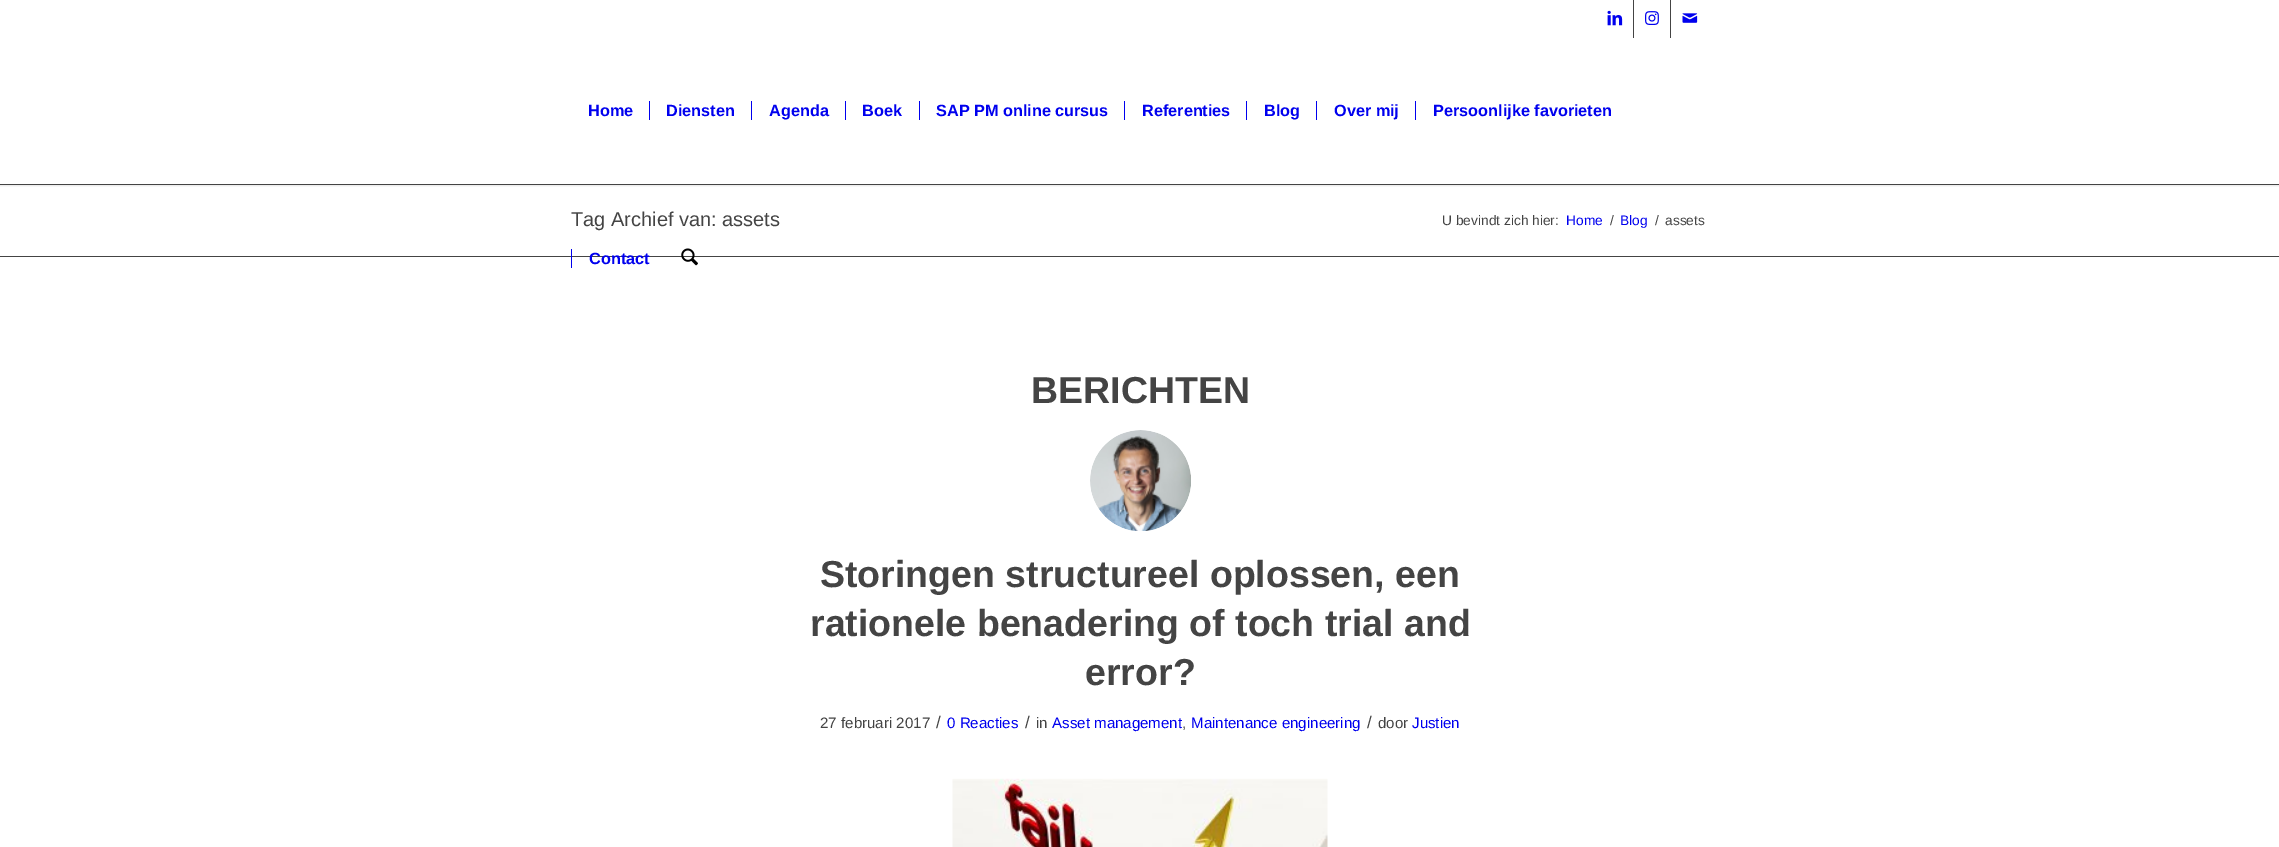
%!PS-Adobe-3.0
%%BoundingBox: 0 0 2279 847
%%LanguageLevel: 3
%%Pages: 1
%%EndComments
%%BeginProlog
/setink { dup -16 bitshift 255 div exch dup -8 bitshift 255 and 255 div exch 255 and 255 div setrgbcolor } def
/usefont { [ exch dup neg 0 0 3 -1 roll 0 0 ] selectfont } def
/setalpha { dup .setfillconstantalpha .setstrokeconstantalpha } def
/rrect { 5 dict begin { /r /h /w /y /x } { exch def } forall
  x r add y moveto x w add y 2 copy h add r arct x w add y h add x 1 index r arct
  x y h add x y r arct x y 2 copy exch w add exch r arct closepath end } def
/softshadow { 12 dict begin { /a /b /q /h /w /y /x } { exch def } forall gsave /was 0 def
  9 -2 -9 { dup b mul 4 div /e exch def 1 sub .425 mul 2.718 exch exp 1 add a .99 .min exch div /now exch def
    1 1 now sub 1 was sub div sub setalpha /was now def
    w h .min e 2 mul add 0 gt { x e sub y e sub w e 2 mul add h e 2 mul add
      q e add b .6 mul add w h .min 2 div e add .min 0 .max rrect fill } if } for grestore end } def
/drawimage { 5 dict begin { /h /w /y /x /name } { exch def } forall
  gsave x y translate w h scale
  w h 8 [w 0 0 h 0 0] name (r) file false 3 colorimage grestore end } def
%%EndProlog
%%BeginSetup
<< /PageSize [2279 847] /PageUsesTransparency true >> setpagedevice
%%EndSetup
%%Page: 1 1
0 .pushpdf14devicefilter
0 847 translate 1 -1 scale
4 setmiterlimit
16#FFFFFF setink
0 0 2279 847 rectfill
16#444444 setink
0 184 2279 1 rectfill
gsave
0 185 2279 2 rectclip
16#000000 setink
-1 -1 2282 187 0 1 0.1 softshadow
grestore
1633 0 1 38 rectfill
(img1.raw) 1607 10 16 16 drawimage
1670 0 1 38 rectfill
(img2.raw) 1645 11 14 14 drawimage
(img3.raw) 1682 13 16 10 drawimage
/LiberationSans-Bold 16.25 usefont
16#0000EE setink
588 116 moveto (Home) show
666 116 moveto (Diensten) show
649 101 1 19 rectfill
769 116 moveto (Agenda) show
751 101 1 19 rectfill
862 116 moveto (Boek) show
845 101 1 19 rectfill
936 116 moveto (SAP PM online cursus) show
919 101 1 19 rectfill
1142 116 moveto (Referenties) show
1124 101 1 19 rectfill
1264 116 moveto (Blog) show
1246 101 1 19 rectfill
1334 116 moveto (Over mij) show
1316 101 1 19 rectfill
1433 116 moveto (Persoonlijke favorieten) show
1415 101 1 19 rectfill
16#444444 setink
0 256 2279 1 rectfill
16#0000EE setink
589 264 moveto (Contact) show
571 249 1 19 rectfill
(img4.raw) 681 248 17 18 drawimage
/LiberationSans-Regular 20 usefont
16#444444 setink
571 226 moveto (Tag Archief van: assets) show
/LiberationSans-Regular 13.75 usefont
1442 225 moveto (U bevindt zich hier:) show
16#0000EE setink
1566 225 moveto (Home) show
16#444444 setink
1610 225 moveto (/) show
16#0000EE setink
1620 225 moveto (Blog) show
16#444444 setink
1655 225 moveto (/) show
1665 225 moveto (assets) show
/LiberationSans-Bold 37.5 usefont
1031 403 moveto (BERICHTEN) show
(img5.raw) 1090 430 101 101 drawimage
[
    [(Storingen structureel oplossen, een) 820 587]
    [(rationele benadering of toch trial and) 810 636]
    [(error?) 1085 685]
] { aload pop moveto show } forall
/LiberationSans-Regular 15.1 usefont
820 728 moveto (27 februari 2017) show
/LiberationSans-Regular 17 usefont
936 728 moveto (/) show
/LiberationSans-Regular 15.1 usefont
16#0000EE setink
947 728 moveto (0 Reacties) show
/LiberationSans-Regular 17 usefont
16#444444 setink
1025 728 moveto (/) show
/LiberationSans-Regular 15.1 usefont
1036 728 moveto (in) show
16#0000EE setink
1052 728 moveto (Asset management) show
16#444444 setink
1182 728 moveto (,) show
16#0000EE setink
1191 728 moveto (Maintenance engineering) show
/LiberationSans-Regular 17 usefont
16#444444 setink
1367 728 moveto (/) show
/LiberationSans-Regular 15.1 usefont
1378 728 moveto (door) show
16#0000EE setink
1412 728 moveto (Justien) show
(img6.raw) 952 778 376 69 drawimage
.poppdf14devicefilter showpage
%%EOF
